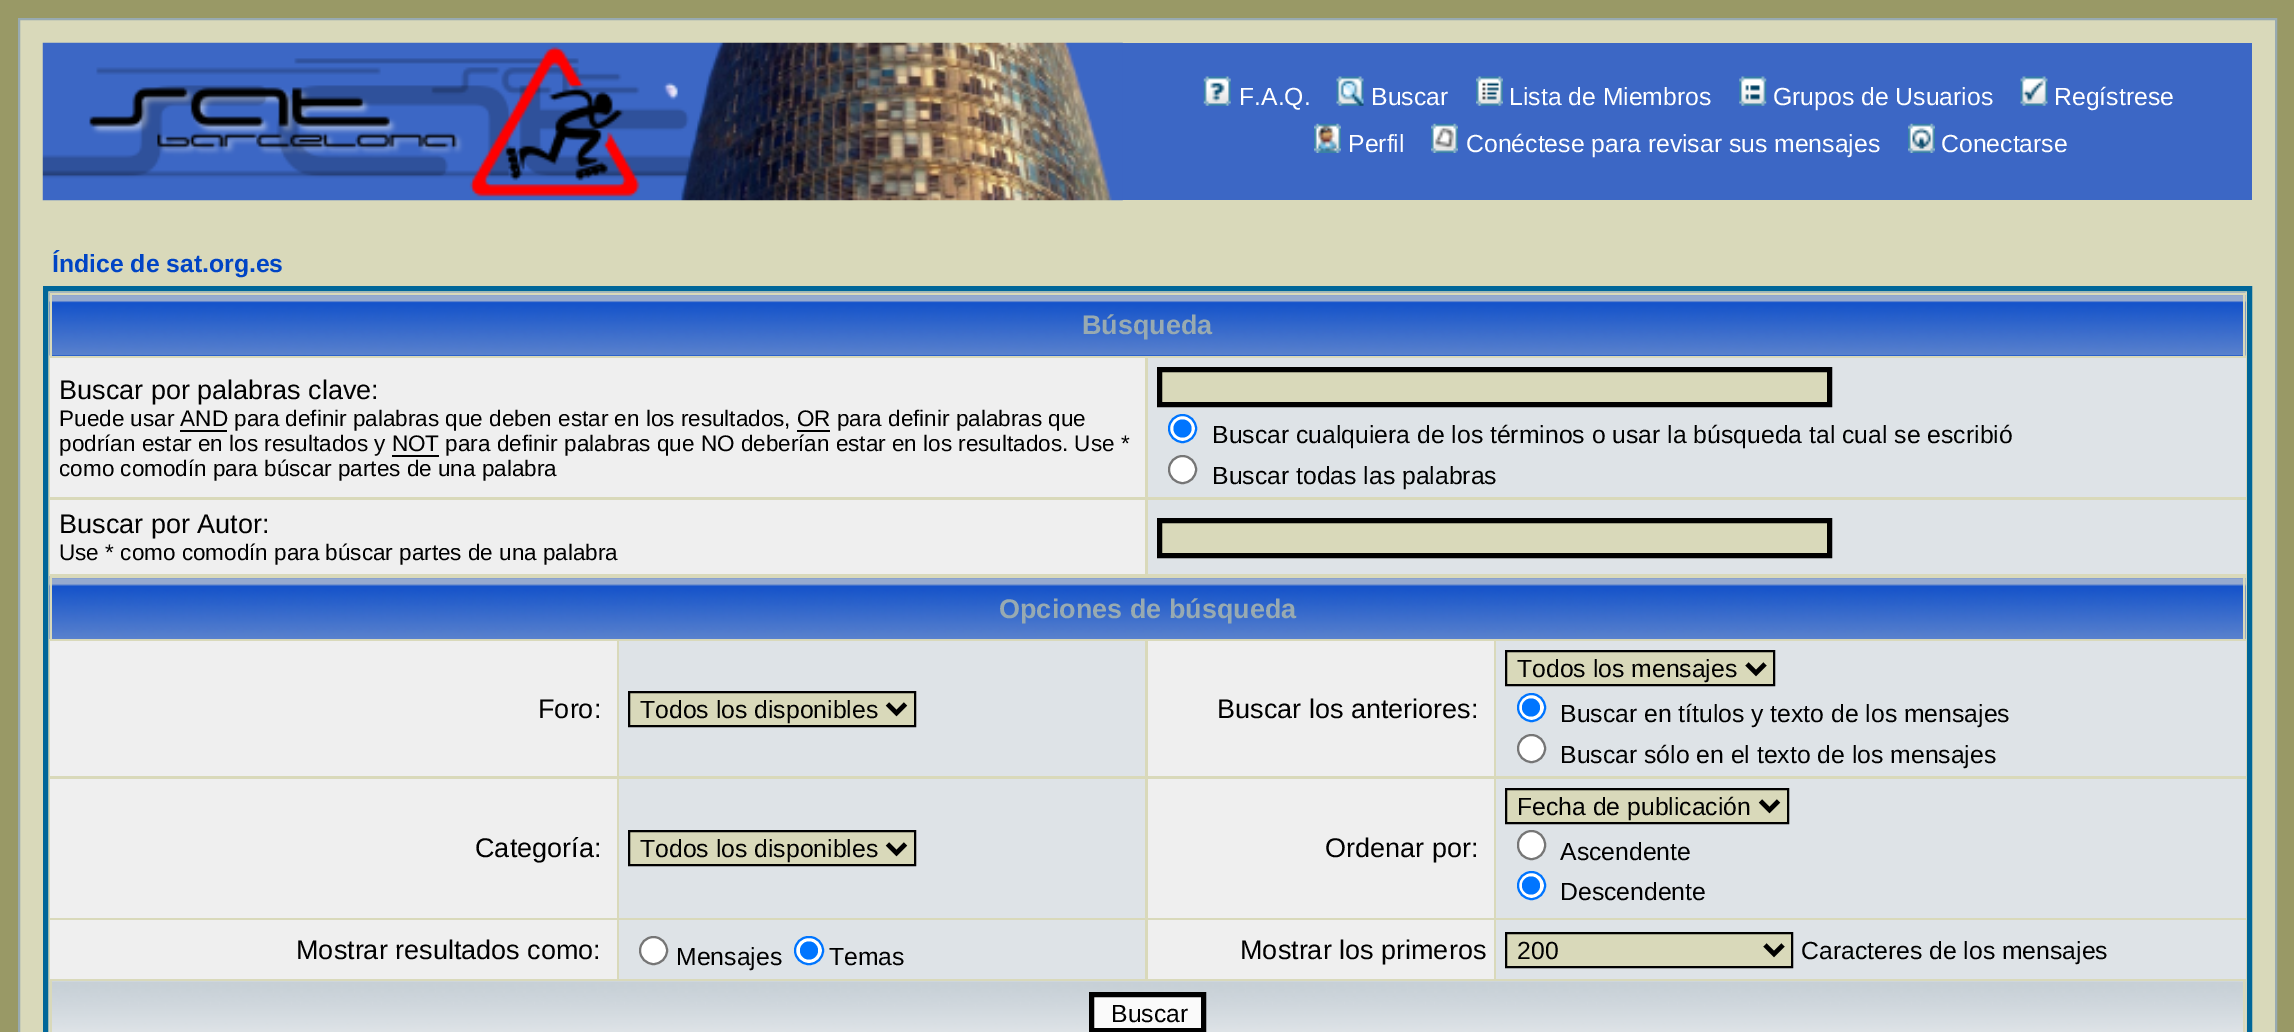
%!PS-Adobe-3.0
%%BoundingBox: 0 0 2294 1032
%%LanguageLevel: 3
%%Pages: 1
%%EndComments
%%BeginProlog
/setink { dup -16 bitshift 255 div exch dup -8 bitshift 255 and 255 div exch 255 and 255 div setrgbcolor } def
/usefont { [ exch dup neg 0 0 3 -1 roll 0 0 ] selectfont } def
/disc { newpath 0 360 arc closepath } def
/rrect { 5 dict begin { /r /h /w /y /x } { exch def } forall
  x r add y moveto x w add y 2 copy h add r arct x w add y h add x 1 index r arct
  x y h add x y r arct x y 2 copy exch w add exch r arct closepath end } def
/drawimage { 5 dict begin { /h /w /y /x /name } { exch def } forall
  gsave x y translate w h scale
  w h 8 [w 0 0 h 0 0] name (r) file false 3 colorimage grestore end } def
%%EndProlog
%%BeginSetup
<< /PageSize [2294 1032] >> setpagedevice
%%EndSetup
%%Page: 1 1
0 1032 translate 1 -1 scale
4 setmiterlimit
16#999966 setink
0 0 2294 1032 rectfill
16#D9D9BA setink
19 19 moveto 2276 19 lineto 2276 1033 lineto 19 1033 lineto closepath gsave fill grestore
16#98AAB1 setink
2 setlinewidth
stroke
(img1.raw) 42 42 1081 159 drawimage
16#3C67C5 setink
1123 43 1129 157 rectfill
(img2.raw) 1203 76 28 30 drawimage
/LiberationSans-Regular 24.75 usefont
16#FFFFFF setink
1239 105 moveto (F.A.Q.) show
(img3.raw) 1336 76 28 30 drawimage
1371 105 moveto (Buscar) show
(img4.raw) 1476 76 27 30 drawimage
1509 105 moveto (Lista de Miembros) show
(img5.raw) 1739 76 28 30 drawimage
1773 105 moveto (Grupos de Usuarios) show
(img6.raw) 2020 76 28 30 drawimage
2054 105 moveto (Regístrese) show
(img7.raw) 1314 123 27 30 drawimage
1348 152 moveto (Perfil) show
(img8.raw) 1431 123 27 30 drawimage
1466 152 moveto (Conéctese para revisar sus mensajes) show
(img9.raw) 1908 123 27 30 drawimage
1941 152 moveto (Conectarse) show
/LiberationSans-Bold 24.75 usefont
16#0044C5 setink
52 272 moveto (Índice de sat.org.es) show
16#006699 setink
5 setlinewidth
45.5 288.5 2204 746 rectstroke
16#0044C5 setink
52 355 2191 1 rectfill
(img10.raw) 49 292 2197 64 drawimage
[
    [50 293 2196 2 16#D9D9BA]
    [2243 293 2 63 16#D9D9BA]
    [50 293 2 63 16#D9D9BA]
] { aload pop setink rectfill } forall
/LiberationSans-Bold 27 usefont
16#98AAB1 setink
1082 334 moveto (Búsqueda) show
16#EFEFEF setink
50 358 1095 139 rectfill
/LiberationSans-Regular 27 usefont
16#000000 setink
59 399 moveto (Buscar por palabras clave:) show
/LiberationSans-Regular 22.5 usefont
59 426 moveto (Puede usar AND para definir palabras que deben estar en los resultados, OR para definir palabras que) show
180 430 47 2 rectfill
797 430 33 2 rectfill
59 451 moveto (podrían estar en los resultados y NOT para definir palabras que NO deberían estar en los resultados. Use *) show
392 455 47 2 rectfill
59 476 moveto (como comodín para búscar partes de una palabra) show
16#DEE3E7 setink
1148 358 1098 139 rectfill
16#D9D9BA setink
1159.5 369.5 moveto 1829.5 369.5 lineto 1829.5 404.5 lineto 1159.5 404.5 lineto closepath gsave fill grestore
16#000000 setink
stroke
16#FFFFFF setink
1182.5 428.5 13.5 disc gsave fill grestore
16#0075FF setink
2 setlinewidth
stroke
1182.5 428.5 9 disc fill
/LiberationSans-Regular 24.75 usefont
16#000000 setink
1212 443 moveto (Buscar cualquiera de los términos o usar la búsqueda tal cual se escribió) show
16#FFFFFF setink
1182.5 469.5 13.5 disc gsave fill grestore
16#767676 setink
stroke
16#000000 setink
1212 484 moveto (Buscar todas las palabras) show
16#EFEFEF setink
50 500 1095 74 rectfill
/LiberationSans-Regular 27 usefont
16#000000 setink
59 533 moveto (Buscar por Autor:) show
/LiberationSans-Regular 22.5 usefont
59 560 moveto (Use * como comodín para búscar partes de una palabra) show
16#DEE3E7 setink
1148 500 1098 74 rectfill
16#D9D9BA setink
1159.5 520.5 moveto 1829.5 520.5 lineto 1829.5 555.5 lineto 1159.5 555.5 lineto closepath gsave fill grestore
16#000000 setink
5 setlinewidth
stroke
(img11.raw) 49 576 2197 63 drawimage
[
    [50 576 2196 2 16#D9D9BA]
    [2243 576 2 63 16#D9D9BA]
    [50 576 2 63 16#D9D9BA]
] { aload pop setink rectfill } forall
/LiberationSans-Bold 27 usefont
16#98AAB1 setink
999 618 moveto (Opciones de búsqueda) show
16#EFEFEF setink
50 641 567 135 rectfill
/LiberationSans-Regular 27 usefont
16#000000 setink
538 718 moveto (Foro:) show
16#DEE3E7 setink
619 641 526 135 rectfill
16#D9D9BA setink
629 692 moveto 915 692 lineto 915 726 lineto 629 726 lineto closepath gsave fill grestore
16#000000 setink
2 setlinewidth
stroke
4.5 setlinewidth
887.5 704 moveto 896.5 713 lineto 905.5 704 lineto stroke
/LiberationSans-Regular 24.75 usefont
640 718 moveto (Todos los disponibles) show
16#EFEFEF setink
1148 641 346 135 rectfill
/LiberationSans-Regular 27 usefont
16#000000 setink
1217 718 moveto (Buscar los anteriores:) show
16#DEE3E7 setink
1496 641 750 135 rectfill
16#D9D9BA setink
1506 651 moveto 1774 651 lineto 1774 685 lineto 1506 685 lineto closepath gsave fill grestore
16#000000 setink
2 setlinewidth
stroke
4.5 setlinewidth
1747 664 moveto 1756 673 lineto 1765 664 lineto stroke
/LiberationSans-Regular 24.75 usefont
1517 677 moveto (Todos los mensajes) show
16#FFFFFF setink
1531.5 707.5 13.5 disc gsave fill grestore
16#0075FF setink
2 setlinewidth
stroke
1531 707.5 9 disc fill
16#000000 setink
1560 722 moveto (Buscar en títulos y texto de los mensajes) show
16#FFFFFF setink
1531.5 748.5 13.5 disc gsave fill grestore
16#767676 setink
stroke
16#000000 setink
1560 763 moveto (Buscar sólo en el texto de los mensajes) show
16#EFEFEF setink
50 779 567 139 rectfill
/LiberationSans-Regular 27 usefont
16#000000 setink
475 857 moveto (Categoría:) show
16#DEE3E7 setink
619 779 526 139 rectfill
16#D9D9BA setink
629 831 moveto 915 831 lineto 915 865 lineto 629 865 lineto closepath gsave fill grestore
16#000000 setink
stroke
4.5 setlinewidth
887.5 844 moveto 896.5 853 lineto 905.5 844 lineto stroke
/LiberationSans-Regular 24.75 usefont
640 857 moveto (Todos los disponibles) show
16#EFEFEF setink
1148 779 346 139 rectfill
/LiberationSans-Regular 27 usefont
16#000000 setink
1325 857 moveto (Ordenar por:) show
16#DEE3E7 setink
1496 779 750 139 rectfill
16#D9D9BA setink
1506 789 moveto 1788 789 lineto 1788 823 lineto 1506 823 lineto closepath gsave fill grestore
16#000000 setink
2 setlinewidth
stroke
4.5 setlinewidth
1760.5 801 moveto 1769.5 810 lineto 1778.5 801 lineto stroke
/LiberationSans-Regular 24.75 usefont
1517 815 moveto (Fecha de publicación) show
16#FFFFFF setink
1518 831 27 28 13.5 rrect gsave fill grestore
16#767676 setink
2 setlinewidth
stroke
16#000000 setink
1560 860 moveto (Ascendente) show
16#FFFFFF setink
1531.5 885.5 13.5 disc gsave fill grestore
16#0075FF setink
stroke
1531 885.5 9 disc fill
16#000000 setink
1560 900 moveto (Descendente) show
16#EFEFEF setink
50 920 567 59 rectfill
/LiberationSans-Regular 27 usefont
16#000000 setink
296 959 moveto (Mostrar resultados como:) show
16#DEE3E7 setink
619 920 526 59 rectfill
16#FFFFFF setink
653.5 950.5 13.5 disc gsave fill grestore
16#767676 setink
stroke
/LiberationSans-Regular 24.75 usefont
16#000000 setink
676 965 moveto (Mensajes) show
16#FFFFFF setink
795 937 28 27 13.5 rrect gsave fill grestore
16#0075FF setink
stroke
809 950.5 9 disc fill
16#000000 setink
829 965 moveto (Temas) show
16#EFEFEF setink
1148 920 346 59 rectfill
/LiberationSans-Regular 27 usefont
16#000000 setink
1240 959 moveto (Mostrar los primeros) show
16#DEE3E7 setink
1496 920 750 59 rectfill
16#D9D9BA setink
1506 933 moveto 1792 933 lineto 1792 967 lineto 1506 967 lineto closepath gsave fill grestore
16#000000 setink
stroke
4.5 setlinewidth
1765 945 moveto 1774 954 lineto 1783 945 lineto stroke
/LiberationSans-Regular 24.75 usefont
1517 959 moveto (200) show
1801 959 moveto (Caracteres de los mensajes) show
(img12.raw) 49 981 2197 51 drawimage
16#D9D9BA setink
2243 981 2 51 rectfill
50 981 2 51 rectfill
16#FAFAFA setink
1091.5 994.5 moveto 1203.5 994.5 lineto 1203.5 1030.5 lineto 1091.5 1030.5 lineto closepath gsave fill grestore
16#000000 setink
5 setlinewidth
stroke
1111 1022 moveto (Buscar) show
showpage
%%EOF
